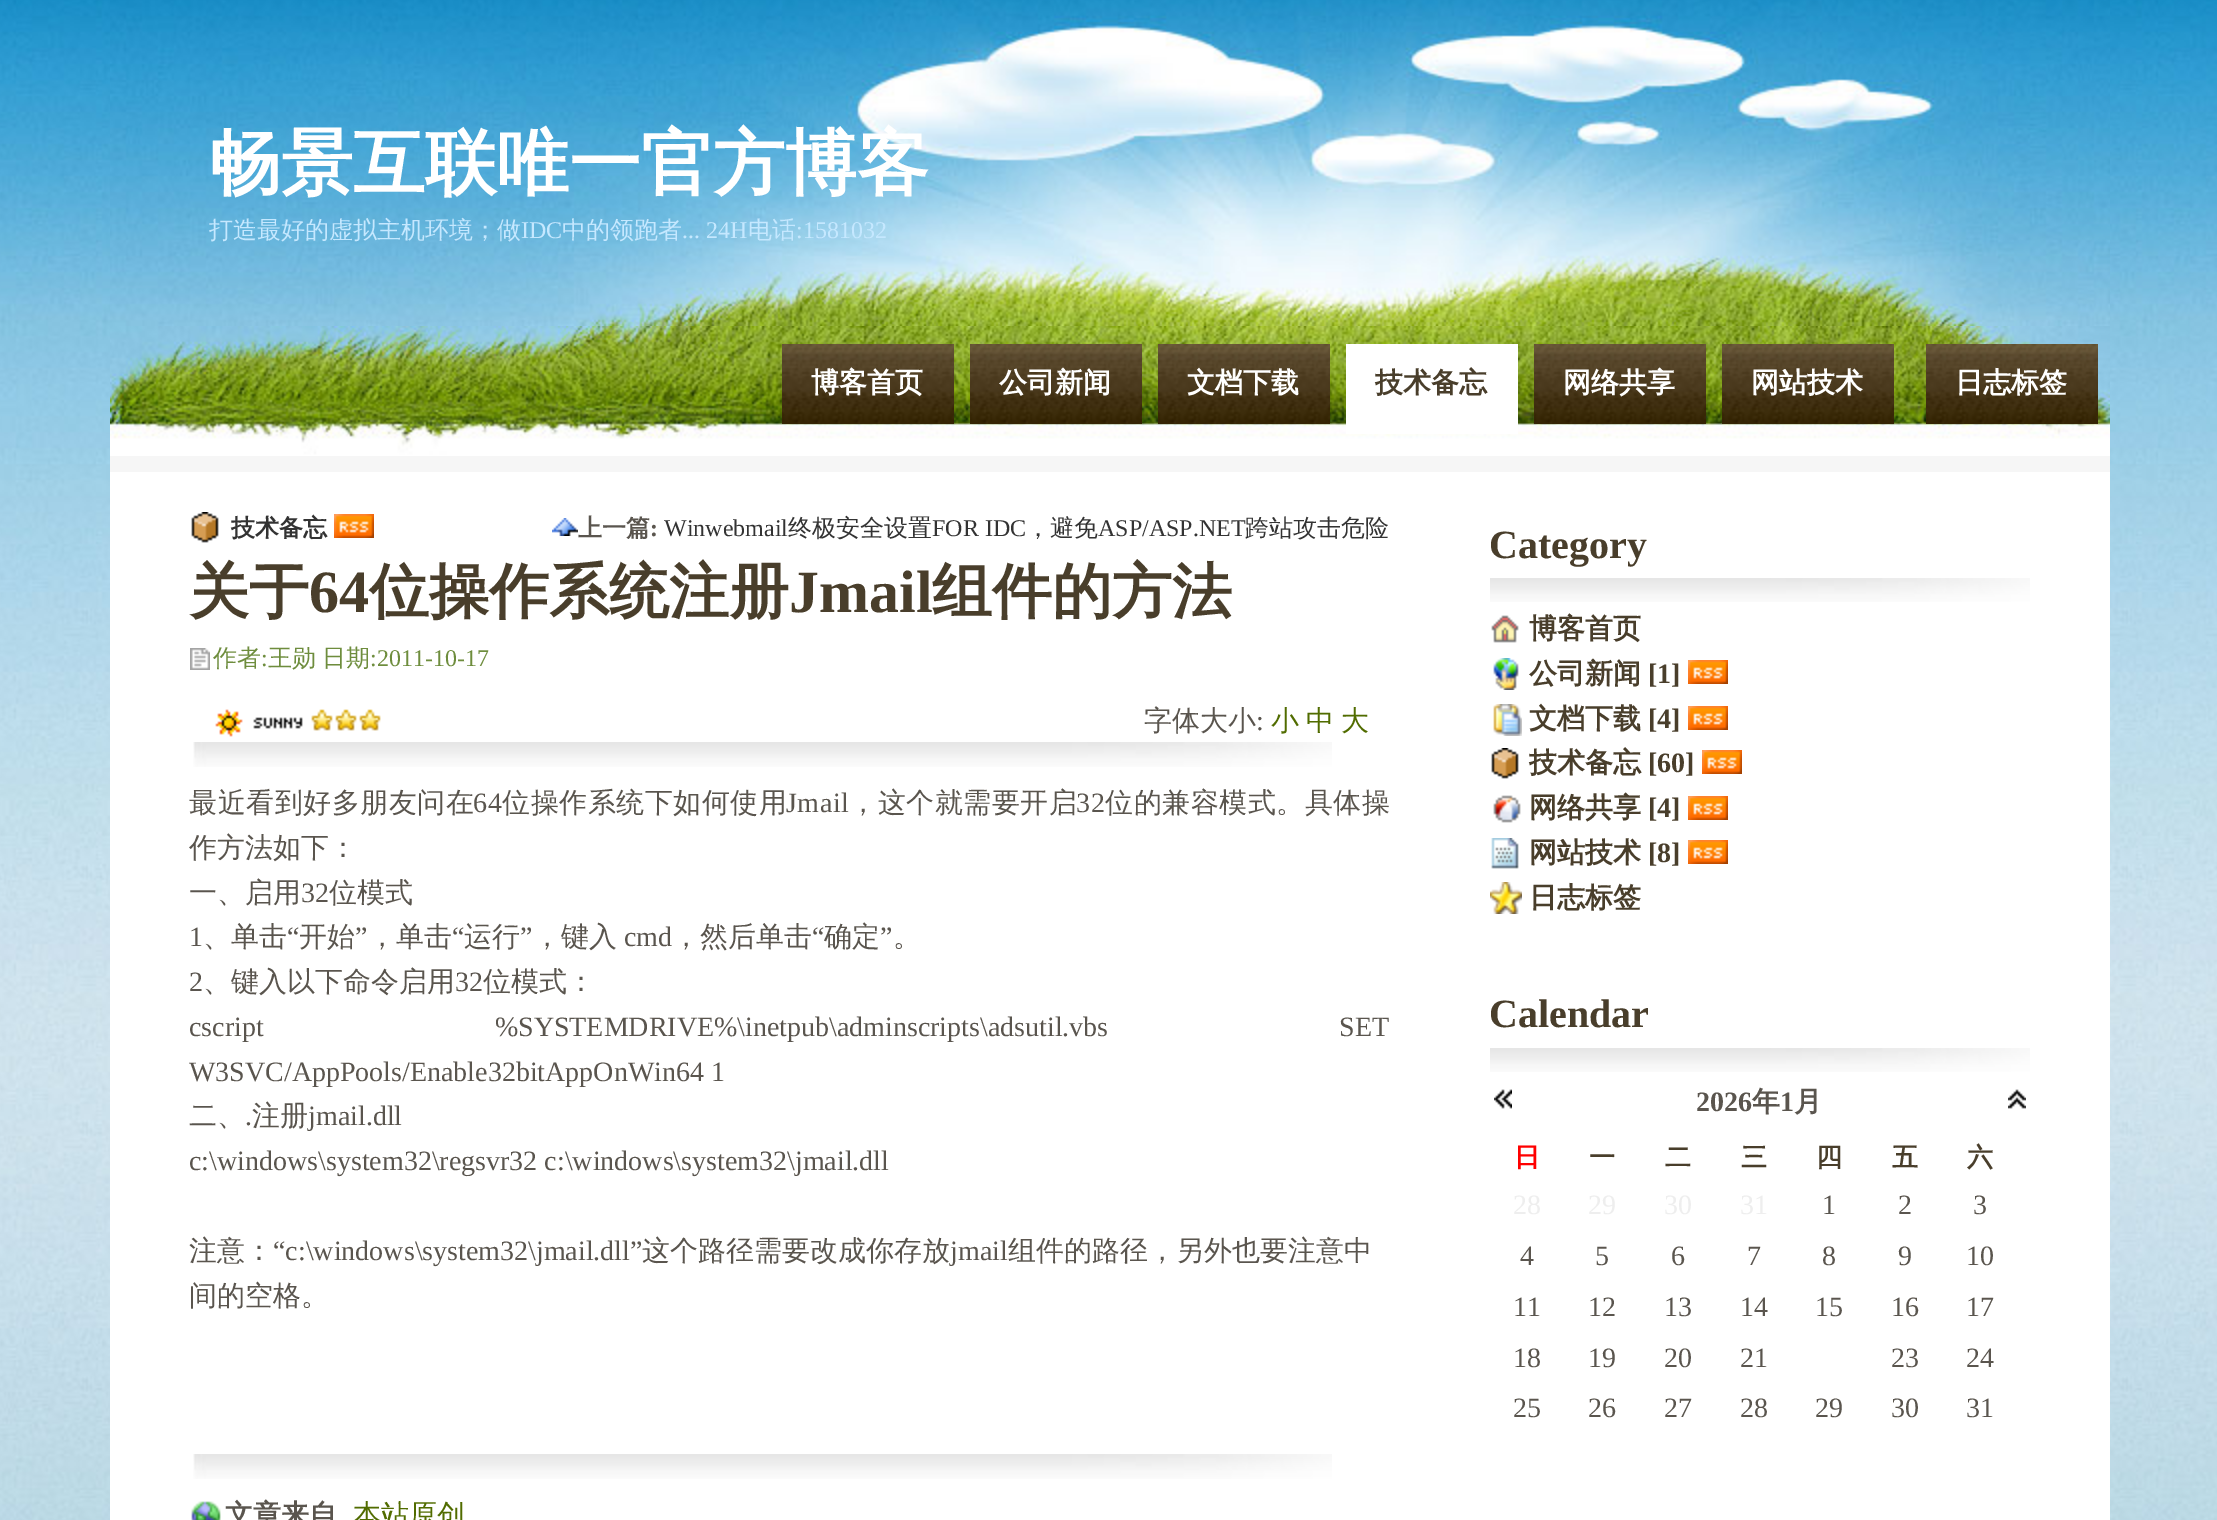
%!PS-Adobe-3.0
%%BoundingBox: 0 0 2217 1520
%%LanguageLevel: 3
%%Pages: 1
%%EndComments
%%BeginProlog
/setink { dup -16 bitshift 255 div exch dup -8 bitshift 255 and 255 div exch 255 and 255 div setrgbcolor } def
/usefont { [ exch dup neg 0 0 3 -1 roll 0 0 ] selectfont } def
/drawimage { 5 dict begin { /h /w /y /x /name } { exch def } forall
  gsave x y translate w h scale
  w h 8 [w 0 0 h 0 0] name (r) file false 3 colorimage grestore end } def
%%EndProlog
%%BeginSetup
<< /PageSize [2217 1520] >> setpagedevice
%%EndSetup
%%Page: 1 1
0 1520 translate 1 -1 scale
4 setmiterlimit
16#FFFFFF setink
0 0 2217 1520 rectfill
(img1.raw) 0 0 2217 1520 drawimage
(img2.raw) 110 0 2000 326 drawimage
/WenQuanYiZenHei-Bold 72 usefont
209 188 moveto (畅景互联唯一官方博客) show
/WenQuanYiZenHei-Medium 24 usefont
16#C5E8FF setink
209 238 moveto (打造最好的虚拟主机环境；做) show
/LiberationSerif-Regular 24 usefont
521 238 moveto (IDC) show
/WenQuanYiZenHei-Medium 24 usefont
562 238 moveto (中的领跑者) show
/LiberationSerif-Regular 24 usefont
682 238 moveto (... 24H) show
/WenQuanYiZenHei-Medium 24 usefont
748 238 moveto (电话) show
/LiberationSerif-Regular 24 usefont
796 238 moveto (:1581032) show
(img3.raw) 110 326 2000 130 drawimage
(img4.raw) 782 344 172 80 drawimage
/WenQuanYiZenHei-Bold 28 usefont
16#FFFFFF setink
811 392 moveto (博客首页) show
(img4.raw) 970 344 172 80 drawimage
999 392 moveto (公司新闻) show
(img4.raw) 1158 344 172 80 drawimage
1187 392 moveto (文档下载) show
1346 344 172 90 rectfill
16#493E2B setink
1375 392 moveto (技术备忘) show
(img4.raw) 1534 344 172 80 drawimage
16#FFFFFF setink
1563 392 moveto (网络共享) show
(img4.raw) 1722 344 172 80 drawimage
1751 392 moveto (网站技术) show
(img4.raw) 1926 344 172 80 drawimage
1955 392 moveto (日志标签) show
16#F6F6F6 setink
110 456 2000 16 rectfill
16#FFFFFF setink
110 472 2000 1048 rectfill
(img5.raw) 191 512 28 31 drawimage
/WenQuanYiZenHei-Bold 24 usefont
16#333333 setink
231 536 moveto (技术备忘) show
(img6.raw) 334 514 40 24 drawimage
(img7.raw) 552 518 26 18 drawimage
16#5A554E setink
578 536 moveto (上一篇) show
/LiberationSerif-Bold 24 usefont
650 536 moveto (:) show
/LiberationSerif-Regular 24 usefont
16#333333 setink
664 536 moveto (Winwebmail) show
/WenQuanYiZenHei-Medium 24 usefont
788 536 moveto (终极安全设置) show
/LiberationSerif-Regular 24 usefont
932 536 moveto (FOR IDC) show
/WenQuanYiZenHei-Medium 24 usefont
1026 536 moveto (，避免) show
/LiberationSerif-Regular 24 usefont
1098 536 moveto (ASP/ASP.NET) show
/WenQuanYiZenHei-Medium 24 usefont
1245 536 moveto (跨站攻击危险) show
/WenQuanYiZenHei-Bold 60 usefont
16#493E2B setink
189 612 moveto (关于) show
/LiberationSerif-Bold 60 usefont
309 612 moveto (64) show
/WenQuanYiZenHei-Bold 60 usefont
369 612 moveto (位操作系统注册) show
/LiberationSerif-Bold 60 usefont
789 612 moveto (Jmail) show
/WenQuanYiZenHei-Bold 60 usefont
932 612 moveto (组件的方法) show
(img8.raw) 190 648 20 22 drawimage
/WenQuanYiZenHei-Medium 24 usefont
16#6E8D3D setink
213 666 moveto (作者) show
/LiberationSerif-Regular 24 usefont
261 666 moveto (:) show
/WenQuanYiZenHei-Medium 24 usefont
268 666 moveto -1 0 32 (王勋 日期) widthshow
/LiberationSerif-Regular 24 usefont
370 666 moveto (:2011-10-17) show
(img9.raw) 215 709 28 28 drawimage
(img10.raw) 253 717 50 12 drawimage
(img11.raw) 311 709 70 22 drawimage
/WenQuanYiZenHei-Medium 28 usefont
16#5A554E setink
1144 730 moveto (字体大小) show
/LiberationSerif-Regular 28 usefont
1256 730 moveto (:) show
/WenQuanYiZenHei-Medium 28 usefont
16#516C00 setink
[
    [(小) 1271 730]
    [(中) 1306 730]
    [(大) 1341 730]
] { aload pop moveto show } forall
(img12.raw) 193 742 1139 25 drawimage
16#5A554E setink
189 812 moveto 0.5 0 (最近看到好多朋友问在) ashow
/LiberationSerif-Regular 28 usefont
473 812 moveto 0.5 0 (64) ashow
/WenQuanYiZenHei-Medium 28 usefont
502 812 moveto 0.5 0 (位操作系统下如何使用) ashow
/LiberationSerif-Regular 28 usefont
786 812 moveto 0.5 0 (Jmail) ashow
/WenQuanYiZenHei-Medium 28 usefont
849 812 moveto 0.5 0 (，这个就需要开启) ashow
/LiberationSerif-Regular 28 usefont
1076 812 moveto 0.5 0 (32) ashow
/WenQuanYiZenHei-Medium 28 usefont
1105 812 moveto 0.5 0 (位的兼容模式。具体操) ashow
189 857 moveto (作方法如下：) show
189 902 moveto (一、启用) show
/LiberationSerif-Regular 28 usefont
301 902 moveto (32) show
/WenQuanYiZenHei-Medium 28 usefont
329 902 moveto (位模式) show
/LiberationSerif-Regular 28 usefont
189 946 moveto (1) show
/WenQuanYiZenHei-Medium 28 usefont
203 946 moveto (、单击) show
/LiberationSerif-Regular 28 usefont
287 946 moveto (“) show
/WenQuanYiZenHei-Medium 28 usefont
299 946 moveto (开始) show
/LiberationSerif-Regular 28 usefont
355 946 moveto (”) show
/WenQuanYiZenHei-Medium 28 usefont
368 946 moveto (，单击) show
/LiberationSerif-Regular 28 usefont
452 946 moveto (“) show
/WenQuanYiZenHei-Medium 28 usefont
464 946 moveto (运行) show
/LiberationSerif-Regular 28 usefont
520 946 moveto (”) show
/WenQuanYiZenHei-Medium 28 usefont
533 946 moveto (，键入) show
/LiberationSerif-Regular 28 usefont
624 946 moveto (cmd) show
/WenQuanYiZenHei-Medium 28 usefont
672 946 moveto (，然后单击) show
/LiberationSerif-Regular 28 usefont
812 946 moveto (“) show
/WenQuanYiZenHei-Medium 28 usefont
824 946 moveto (确定) show
/LiberationSerif-Regular 28 usefont
880 946 moveto (”) show
/WenQuanYiZenHei-Medium 28 usefont
893 946 moveto (。) show
/LiberationSerif-Regular 28 usefont
189 991 moveto (2) show
/WenQuanYiZenHei-Medium 28 usefont
203 991 moveto (、键入以下命令启用) show
/LiberationSerif-Regular 28 usefont
455 991 moveto (32) show
/WenQuanYiZenHei-Medium 28 usefont
483 991 moveto (位模式：) show
/LiberationSerif-Regular 28 usefont
189 1036 moveto 224 0 32 (cscript %SYSTEMDRIVE%\\inetpub\\adminscripts\\adsutil.vbs SET) widthshow
189 1081 moveto (W3SVC/AppPools/Enable32bitAppOnWin64 1) show
/WenQuanYiZenHei-Medium 28 usefont
189 1125 moveto (二、) show
/LiberationSerif-Regular 28 usefont
245 1125 moveto (.) show
/WenQuanYiZenHei-Medium 28 usefont
252 1125 moveto (注册) show
/LiberationSerif-Regular 28 usefont
308 1125 moveto (jmail.dll) show
189 1170 moveto (c:\\windows\\system32\\regsvr32 c:\\windows\\system32\\jmail.dll) show
/WenQuanYiZenHei-Medium 28 usefont
189 1260 moveto (注意：) show
/LiberationSerif-Regular 28 usefont
273 1260 moveto (“c:\\windows\\system32\\jmail.dll”) show
/WenQuanYiZenHei-Medium 28 usefont
642 1260 moveto (这个路径需要改成你存放) show
/LiberationSerif-Regular 28 usefont
950 1260 moveto (jmail) show
/WenQuanYiZenHei-Medium 28 usefont
1008 1260 moveto (组件的路径，另外也要注意中) show
189 1305 moveto (间的空格。) show
(img12.raw) 193 1454 1139 25 drawimage
(img13.raw) 191 1501 30 19 drawimage
/WenQuanYiZenHei-Bold 28 usefont
225 1524 moveto (文章来自) show
/WenQuanYiZenHei-Medium 28 usefont
16#516C00 setink
353 1524 moveto (本站原创) show
/LiberationSerif-Bold 40 usefont
16#493E2B setink
1489 558 moveto (Category) show
(img14.raw) 1490 578 540 24 drawimage
(img15.raw) 1491 615 28 28 drawimage
/WenQuanYiZenHei-Bold 28 usefont
1529 638 moveto (博客首页) show
(img16.raw) 1493 658 26 32 drawimage
1529 683 moveto (公司新闻) show
/LiberationSerif-Bold 28 usefont
1648 683 moveto ([1]) show
(img6.raw) 1688 660 40 24 drawimage
(img17.raw) 1493 704 29 32 drawimage
/WenQuanYiZenHei-Bold 28 usefont
1529 728 moveto (文档下载) show
/LiberationSerif-Bold 28 usefont
1648 728 moveto ([4]) show
(img6.raw) 1688 706 40 24 drawimage
(img5.raw) 1491 748 28 31 drawimage
/WenQuanYiZenHei-Bold 28 usefont
1529 772 moveto (技术备忘) show
/LiberationSerif-Bold 28 usefont
1648 772 moveto ([60]) show
(img6.raw) 1702 750 40 24 drawimage
(img18.raw) 1493 795 28 28 drawimage
/WenQuanYiZenHei-Bold 28 usefont
1529 817 moveto (网络共享) show
/LiberationSerif-Bold 28 usefont
1648 817 moveto ([4]) show
(img6.raw) 1688 796 40 24 drawimage
(img19.raw) 1491 838 28 31 drawimage
/WenQuanYiZenHei-Bold 28 usefont
1529 862 moveto (网站技术) show
/LiberationSerif-Bold 28 usefont
1648 862 moveto ([8]) show
(img6.raw) 1688 840 40 24 drawimage
(img20.raw) 1490 882 32 32 drawimage
/WenQuanYiZenHei-Bold 28 usefont
1529 907 moveto (日志标签) show
/LiberationSerif-Bold 40 usefont
1489 1027 moveto (Calendar) show
(img14.raw) 1490 1048 540 24 drawimage
(img21.raw) 1494 1089 18 20 drawimage
/LiberationSerif-Bold 28 usefont
16#5A554E setink
1696 1111 moveto (2026) show
/WenQuanYiZenHei-Bold 28 usefont
1752 1111 moveto (年) show
/LiberationSerif-Bold 28 usefont
1780 1111 moveto (1) show
/WenQuanYiZenHei-Bold 28 usefont
1794 1111 moveto (月) show
(img22.raw) 2008 1089 18 20 drawimage
/WenQuanYiZenHei-Bold 26 usefont
16#FF0000 setink
1514 1166 moveto (日) show
16#493E2B setink
[
    [(一) 1589 1166]
    [(二) 1665 1166]
    [(三) 1741 1166]
    [(四) 1816 1166]
    [(五) 1892 1166]
    [(六) 1967 1166]
] { aload pop moveto show } forall
/LiberationSerif-Regular 28 usefont
16#EEEEEE setink
[
    [(28) 1513 1214]
    [(29) 1588 1214]
    [(30) 1664 1214]
    [(31) 1740 1214]
] { aload pop moveto show } forall
16#5A554E setink
[
    [(1) 1822 1214]
    [(2) 1898 1214]
    [(3) 1973 1214]
    [(4) 1520 1265]
    [(5) 1595 1265]
    [(6) 1671 1265]
    [(7) 1747 1265]
    [(8) 1822 1265]
    [(9) 1898 1265]
    [(10) 1966 1265]
    [(11) 1513 1316]
    [(12) 1588 1316]
    [(13) 1664 1316]
    [(14) 1740 1316]
    [(15) 1815 1316]
    [(16) 1891 1316]
    [(17) 1966 1316]
    [(18) 1513 1367]
    [(19) 1588 1367]
    [(20) 1664 1367]
    [(21) 1740 1367]
    [(23) 1891 1367]
    [(24) 1966 1367]
    [(25) 1513 1417]
    [(26) 1588 1417]
    [(27) 1664 1417]
    [(28) 1740 1417]
    [(29) 1815 1417]
    [(30) 1891 1417]
    [(31) 1966 1417]
] { aload pop moveto show } forall
showpage
%%EOF
